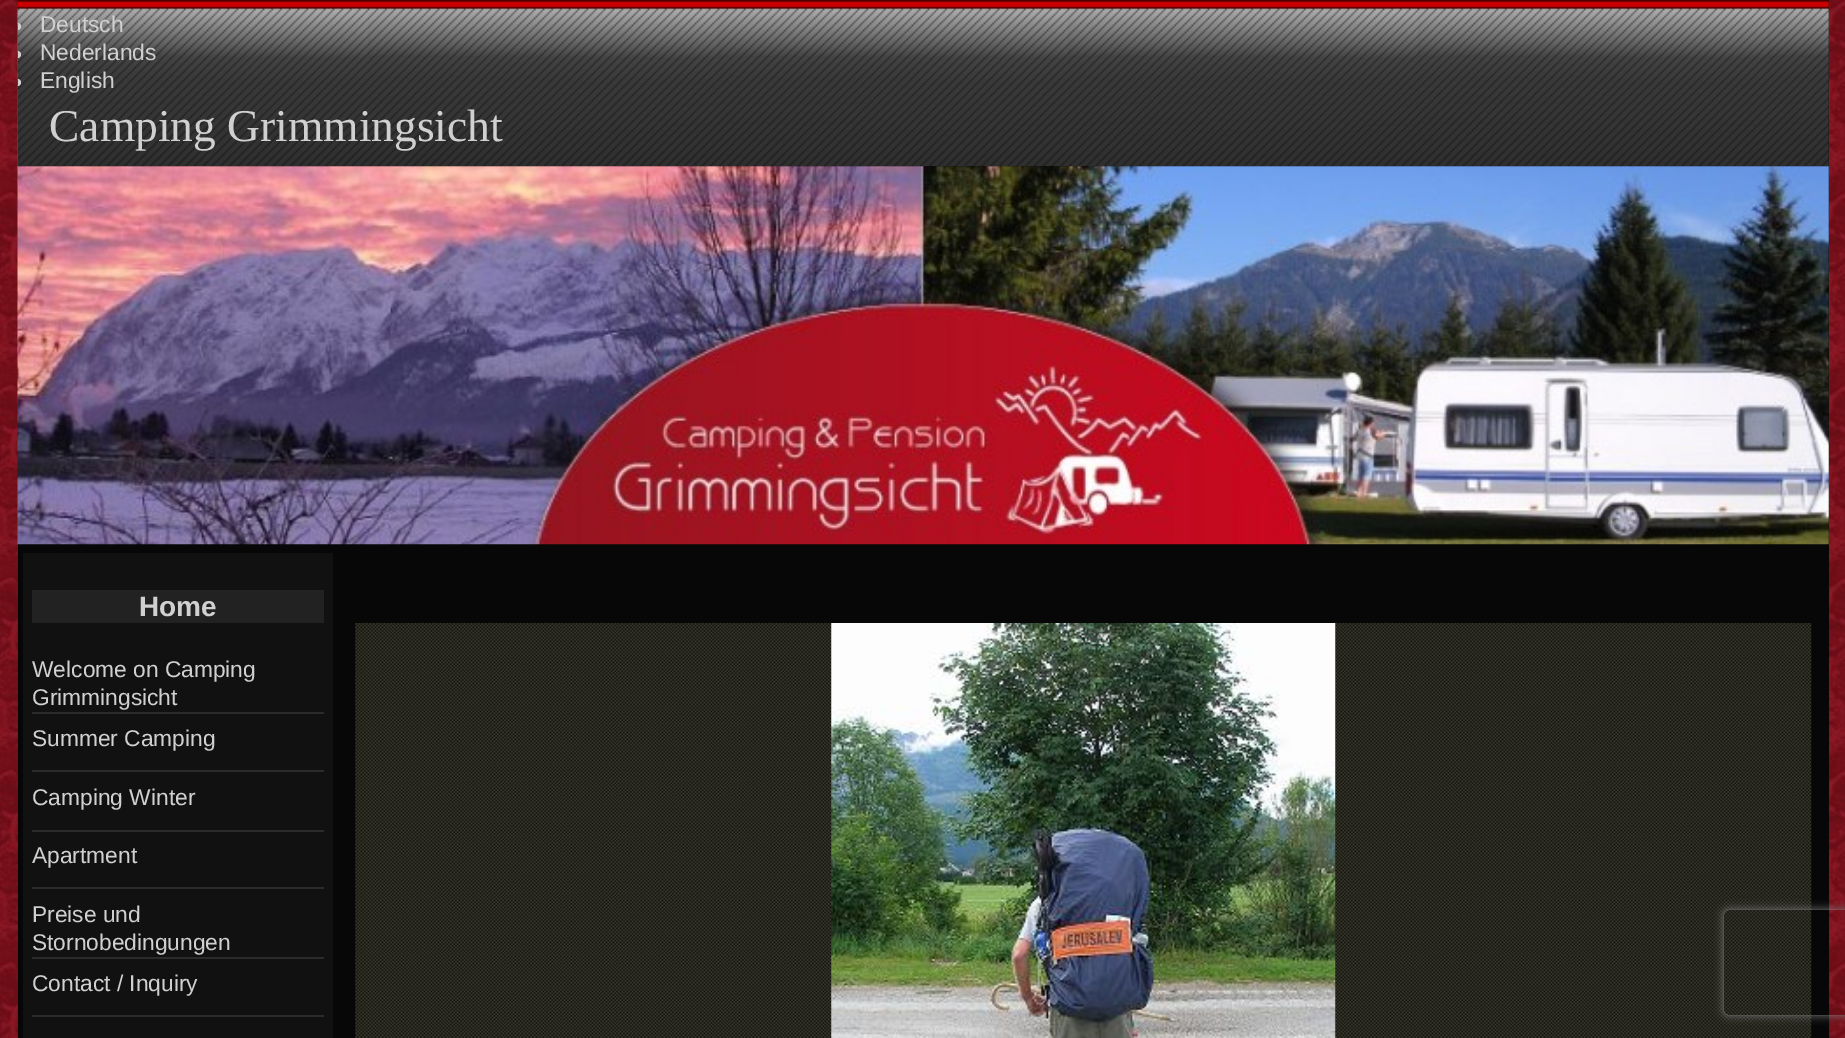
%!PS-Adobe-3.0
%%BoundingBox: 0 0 1845 1038
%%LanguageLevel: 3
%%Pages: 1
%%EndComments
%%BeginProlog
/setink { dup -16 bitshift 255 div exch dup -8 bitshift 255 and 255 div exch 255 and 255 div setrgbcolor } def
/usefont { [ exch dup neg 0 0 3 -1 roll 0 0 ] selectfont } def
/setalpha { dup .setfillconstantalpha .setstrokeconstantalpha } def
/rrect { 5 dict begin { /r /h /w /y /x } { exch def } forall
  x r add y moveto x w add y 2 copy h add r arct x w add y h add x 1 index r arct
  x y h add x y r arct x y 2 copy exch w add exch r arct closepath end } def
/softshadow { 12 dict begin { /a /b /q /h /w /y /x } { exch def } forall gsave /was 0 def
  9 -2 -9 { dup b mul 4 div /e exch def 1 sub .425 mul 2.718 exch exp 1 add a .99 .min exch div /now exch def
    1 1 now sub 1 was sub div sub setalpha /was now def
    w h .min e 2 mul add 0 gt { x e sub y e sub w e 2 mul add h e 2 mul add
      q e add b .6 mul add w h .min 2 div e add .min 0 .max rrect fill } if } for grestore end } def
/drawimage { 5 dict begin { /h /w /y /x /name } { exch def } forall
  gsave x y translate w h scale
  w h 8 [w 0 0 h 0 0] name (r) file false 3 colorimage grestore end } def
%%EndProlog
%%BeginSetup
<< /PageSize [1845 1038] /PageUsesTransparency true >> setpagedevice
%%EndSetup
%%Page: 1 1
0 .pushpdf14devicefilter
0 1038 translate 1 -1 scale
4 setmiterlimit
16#FFFFFF setink
0 0 1845 1038 rectfill
(img1.raw) 0 0 1845 1038 drawimage
16#070707 setink
18 0 1811 1038 rectfill
(img2.raw) 17 0 1812 167 drawimage
16#D0D0D0 setink
18 23 moveto 17.5 23 lineto 19.5 23 21 24.5 21 26.5 curveto 21 28.5 19.5 30 17.5 30 curveto 18 30 lineto closepath fill
/LiberationSans-Regular 22.75 usefont
40 32 moveto (Deutsch) show
18 51 moveto 17.5 51 lineto 19.5 51 21 52.5 21 54.5 curveto 21 56.5 19.5 58 17.5 58 curveto 18 58 lineto closepath fill
40 60 moveto (Nederlands) show
18 79 moveto 17.5 79 lineto 19.5 79 21 80.5 21 82.5 curveto 21 84.5 19.5 86 17.5 86 curveto 18 86 lineto closepath fill
40 88 moveto (English) show
/LiberationSerif-Regular 45.5 usefont
49 141 moveto (Camping Grimmingsicht) show
(img3.raw) 17 166 1812 379 drawimage
16#111111 setink
23 553 310 485 rectfill
16#222222 setink
32 590 292 33 rectfill
/LiberationSans-Bold 28 usefont
16#D0D0D0 setink
139 616 moveto (Home) show
16#2B2B2B setink
32 712 292 2 rectfill
/LiberationSans-Regular 22.75 usefont
16#D0D0D0 setink
32 677 moveto (Welcome on Camping) show
32 705 moveto (Grimmingsicht) show
16#2B2B2B setink
32 770 292 2 rectfill
16#D0D0D0 setink
32 746 moveto (Summer Camping) show
16#2B2B2B setink
32 830 292 2 rectfill
16#D0D0D0 setink
32 805 moveto (Camping Winter) show
16#2B2B2B setink
32 887 292 2 rectfill
16#D0D0D0 setink
32 863 moveto (Apartment) show
16#2B2B2B setink
32 957 292 2 rectfill
16#D0D0D0 setink
32 922 moveto (Preise und) show
32 950 moveto (Stornobedingungen) show
16#2B2B2B setink
32 1015 292 2 rectfill
16#D0D0D0 setink
32 991 moveto (Contact / Inquiry) show
(img4.raw) 355 623 1457 415 drawimage
(img5.raw) 831 623 505 415 drawimage
gsave
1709 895 moveto 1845 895 lineto 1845 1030 lineto 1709 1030 lineto closepath 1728 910 moveto 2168 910 lineto 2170 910 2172 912 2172 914 curveto 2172 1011 lineto 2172 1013 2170 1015 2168 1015 curveto 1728 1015 lineto 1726 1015 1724 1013 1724 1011 curveto 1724 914 lineto 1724 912 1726 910 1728 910 curveto closepath eoclip newpath
16#808080 setink
1724 910 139 105 4 4.5 1 softshadow
grestore
.poppdf14devicefilter showpage
%%EOF
